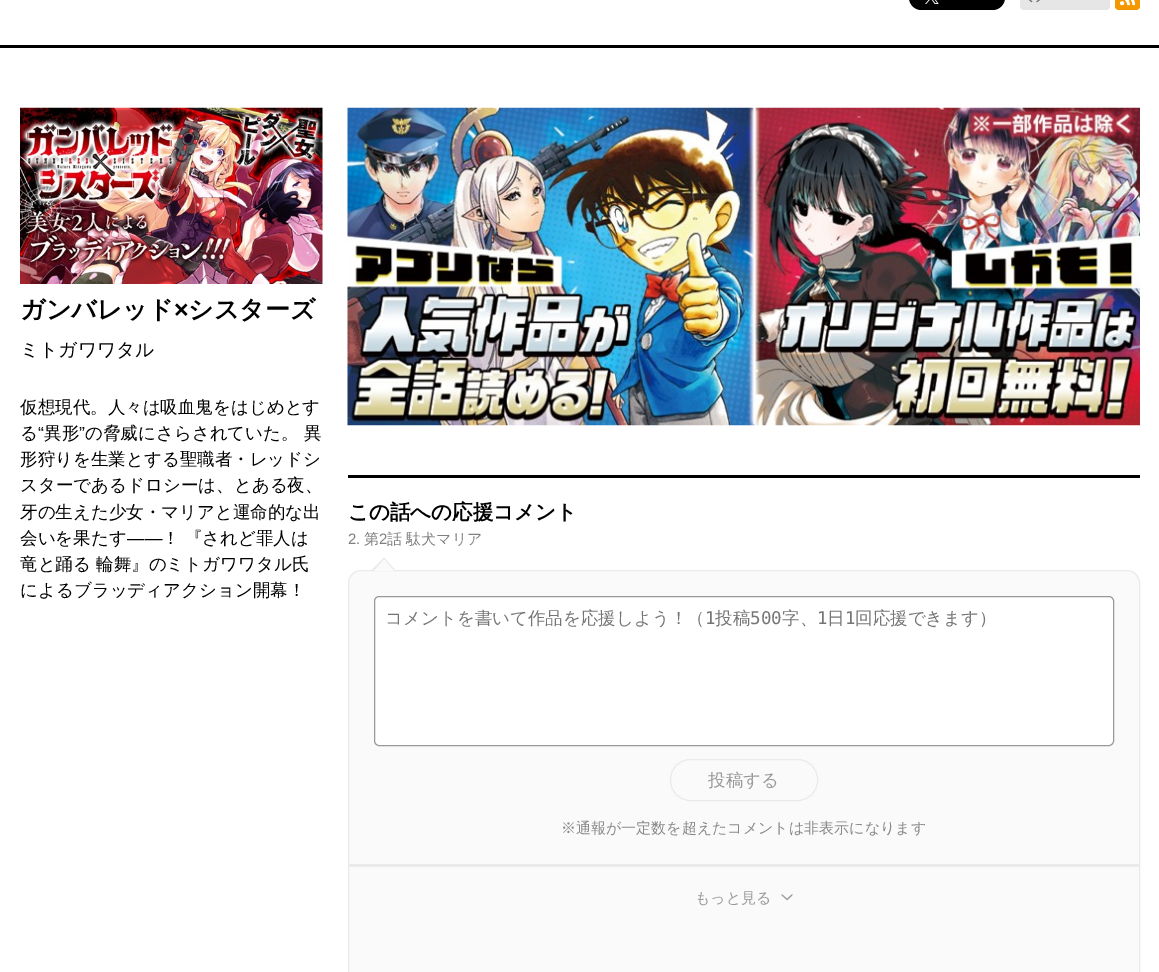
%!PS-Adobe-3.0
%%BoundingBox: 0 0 1159 972
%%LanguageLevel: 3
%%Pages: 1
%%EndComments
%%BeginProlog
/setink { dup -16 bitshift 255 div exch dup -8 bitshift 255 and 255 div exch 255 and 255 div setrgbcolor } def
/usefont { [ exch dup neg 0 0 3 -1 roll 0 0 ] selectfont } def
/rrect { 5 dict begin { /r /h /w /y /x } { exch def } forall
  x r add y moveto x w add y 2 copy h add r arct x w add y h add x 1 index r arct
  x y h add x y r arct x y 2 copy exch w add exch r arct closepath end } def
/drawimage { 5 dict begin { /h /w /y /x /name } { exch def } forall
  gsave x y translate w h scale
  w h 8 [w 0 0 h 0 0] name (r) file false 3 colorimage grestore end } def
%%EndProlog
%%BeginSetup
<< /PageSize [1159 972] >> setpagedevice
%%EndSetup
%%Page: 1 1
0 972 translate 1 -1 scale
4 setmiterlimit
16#FFFFFF setink
0 0 1159 972 rectfill
16#000000 setink
0 45 1159 3 rectfill
909 -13 96 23 12.5 rrect fill
(img1.raw) 925 0 14 4 drawimage
16#E6E6E6 setink
1020 -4 90 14 4 rrect fill
(img2.raw) 1028 0 12 3 drawimage
16#F39801 setink
1115 -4 25 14 4 rrect fill
(img3.raw) 1120 0 15 6 drawimage
(img4.raw) 20 107 303 177 drawimage
/WenQuanYiZenHei-Bold 25 usefont
16#000000 setink
20 318 moveto (ガンバレッド) show
/LiberationSans-Bold 25 usefont
174 318 moveto (×) show
/WenQuanYiZenHei-Bold 25 usefont
188 318 moveto (シスターズ) show
/WenQuanYiZenHei-Medium 18.75 usefont
20 356 moveto (ミトガワワタル) show
/WenQuanYiZenHei-Medium 17.5 usefont
20 413 moveto (仮想現代。人々は吸血鬼をはじめとす) show
20 439 moveto (る) show
/LiberationSans-Regular 17.5 usefont
38 439 moveto (“) show
/WenQuanYiZenHei-Medium 17.5 usefont
44 439 moveto (異形) show
/LiberationSans-Regular 17.5 usefont
79 439 moveto (”) show
/WenQuanYiZenHei-Medium 17.5 usefont
[
    [(の脅威にさらされていた。 異) 85 439]
    [(形狩りを生業とする聖職者・レッドシ) 20 465]
    [(スターであるドロシーは、とある夜、) 20 491]
    [(牙の生えた少女・マリアと運命的な出) 20 518]
    [(会いを果たす) 20 544]
] { aload pop moveto show } forall
/LiberationSans-Regular 17.5 usefont
127 544 moveto (――) show
/WenQuanYiZenHei-Medium 17.5 usefont
[
    [(！ 『されど罪人は) 162 544]
    [(竜と踊る 輪舞』のミトガワワタル氏) 20 570]
    [(によるブラッディアクション開幕！) 20 596]
] { aload pop moveto show } forall
(img5.raw) 347 107 793 319 drawimage
348 475 792 3 rectfill
/WenQuanYiZenHei-Bold 20.5 usefont
348 519 moveto (この話への応援コメント) show
/LiberationSans-Regular 15 usefont
16#808080 setink
348 544 moveto (2.) show
/WenQuanYiZenHei-Medium 15 usefont
364 544 moveto (第) show
/LiberationSans-Regular 15 usefont
379 544 moveto (2) show
/WenQuanYiZenHei-Medium 15 usefont
387 544 moveto (話 駄犬マリア) show
16#FAFAFA setink
348.5 570.5 791 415 12.5 rrect gsave fill grestore
16#EAEAEA setink
stroke
396 571 moveto 371 571 lineto 384 557.5 lineto closepath fill
16#FAFAFA setink
394 571 moveto 374 571 lineto 384 559 lineto closepath fill
16#EAEAEA setink
349 864 790 3 rectfill
16#FFFFFF setink
374.5 596.5 739 149 4.5 rrect gsave fill grestore
16#999999 setink
stroke
/WenQuanYiZenHei-Medium 17.5 usefont
16#757575 setink
385 624 moveto (コメントを書いて作品を応援しよう！（) show
/DejaVuSansMono-Regular 17.5 usefont
705 624 moveto (1) show
/WenQuanYiZenHei-Medium 17.5 usefont
715 624 moveto (投稿) show
/DejaVuSansMono-Regular 17.5 usefont
750 624 moveto (500) show
/WenQuanYiZenHei-Medium 17.5 usefont
782 624 moveto (字、) show
/DejaVuSansMono-Regular 17.5 usefont
817 624 moveto (1) show
/WenQuanYiZenHei-Medium 17.5 usefont
827 624 moveto (日) show
/DejaVuSansMono-Regular 17.5 usefont
845 624 moveto (1) show
/WenQuanYiZenHei-Medium 17.5 usefont
855 624 moveto (回応援できます）) show
16#EAEAEA setink
670.5 759.5 147 41 19.5 rrect stroke
16#999999 setink
708 786 moveto (投稿する) show
/WenQuanYiZenHei-Medium 15 usefont
16#888888 setink
561 833 moveto (※通報が一定数を超えたコメントは非表示になります) show
16#999999 setink
695 903 moveto (もっと見る) show
(img6.raw) 781 894 12 7 drawimage
showpage
%%EOF
